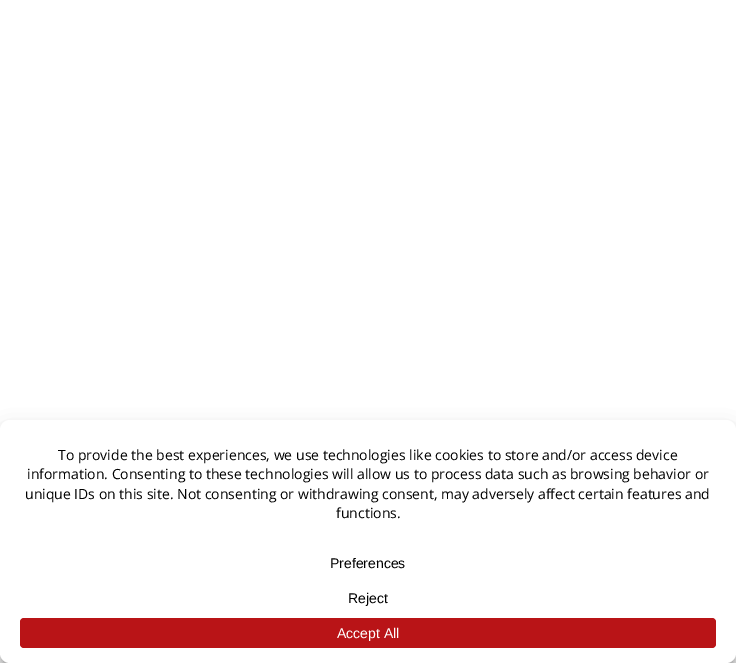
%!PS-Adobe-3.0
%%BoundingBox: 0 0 736 663
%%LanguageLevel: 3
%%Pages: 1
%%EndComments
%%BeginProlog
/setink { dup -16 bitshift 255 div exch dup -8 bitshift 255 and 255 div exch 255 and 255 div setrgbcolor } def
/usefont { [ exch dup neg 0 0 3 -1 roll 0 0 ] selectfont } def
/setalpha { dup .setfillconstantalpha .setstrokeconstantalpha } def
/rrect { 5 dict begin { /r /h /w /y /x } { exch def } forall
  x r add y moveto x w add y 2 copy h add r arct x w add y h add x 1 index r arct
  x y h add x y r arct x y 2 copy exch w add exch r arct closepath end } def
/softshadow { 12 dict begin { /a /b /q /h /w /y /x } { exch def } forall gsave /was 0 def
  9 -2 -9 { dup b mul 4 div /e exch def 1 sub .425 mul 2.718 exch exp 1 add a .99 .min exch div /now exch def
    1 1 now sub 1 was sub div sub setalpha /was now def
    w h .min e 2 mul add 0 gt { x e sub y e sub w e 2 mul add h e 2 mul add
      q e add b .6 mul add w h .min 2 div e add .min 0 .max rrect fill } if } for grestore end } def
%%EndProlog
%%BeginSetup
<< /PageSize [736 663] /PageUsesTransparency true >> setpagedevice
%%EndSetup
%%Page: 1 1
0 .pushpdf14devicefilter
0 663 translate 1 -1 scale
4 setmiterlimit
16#FFFFFF setink
0 0 736 663 rectfill
16#000000 setink
0 426 736 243 10 3 0.23 softshadow
0 430 736 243 10 10 0.19 softshadow
16#FFFFFF setink
0 420 736 243 10 rrect fill
/OpenSans-Regular 14 usefont
16#000000 setink
[
    [(To provide the best experiences, we use technologies like cookies to store and/or access device) 58 460]
    [(information. Consenting to these technologies will allow us to process data such as browsing behavior or) 27 479]
    [(unique IDs on this site. Not consenting or withdrawing consent, may adversely affect certain features and) 25 499]
    [(functions.) 336 518]
] { aload pop moveto show } forall
/LiberationSans-Regular 14 usefont
330 568 moveto (Preferences) show
348 603 moveto (Reject) show
16#B91417 setink
20 618 696 30 4 rrect fill
16#FFFFFF setink
337 638 moveto (Accept All) show
.poppdf14devicefilter showpage
%%EOF
